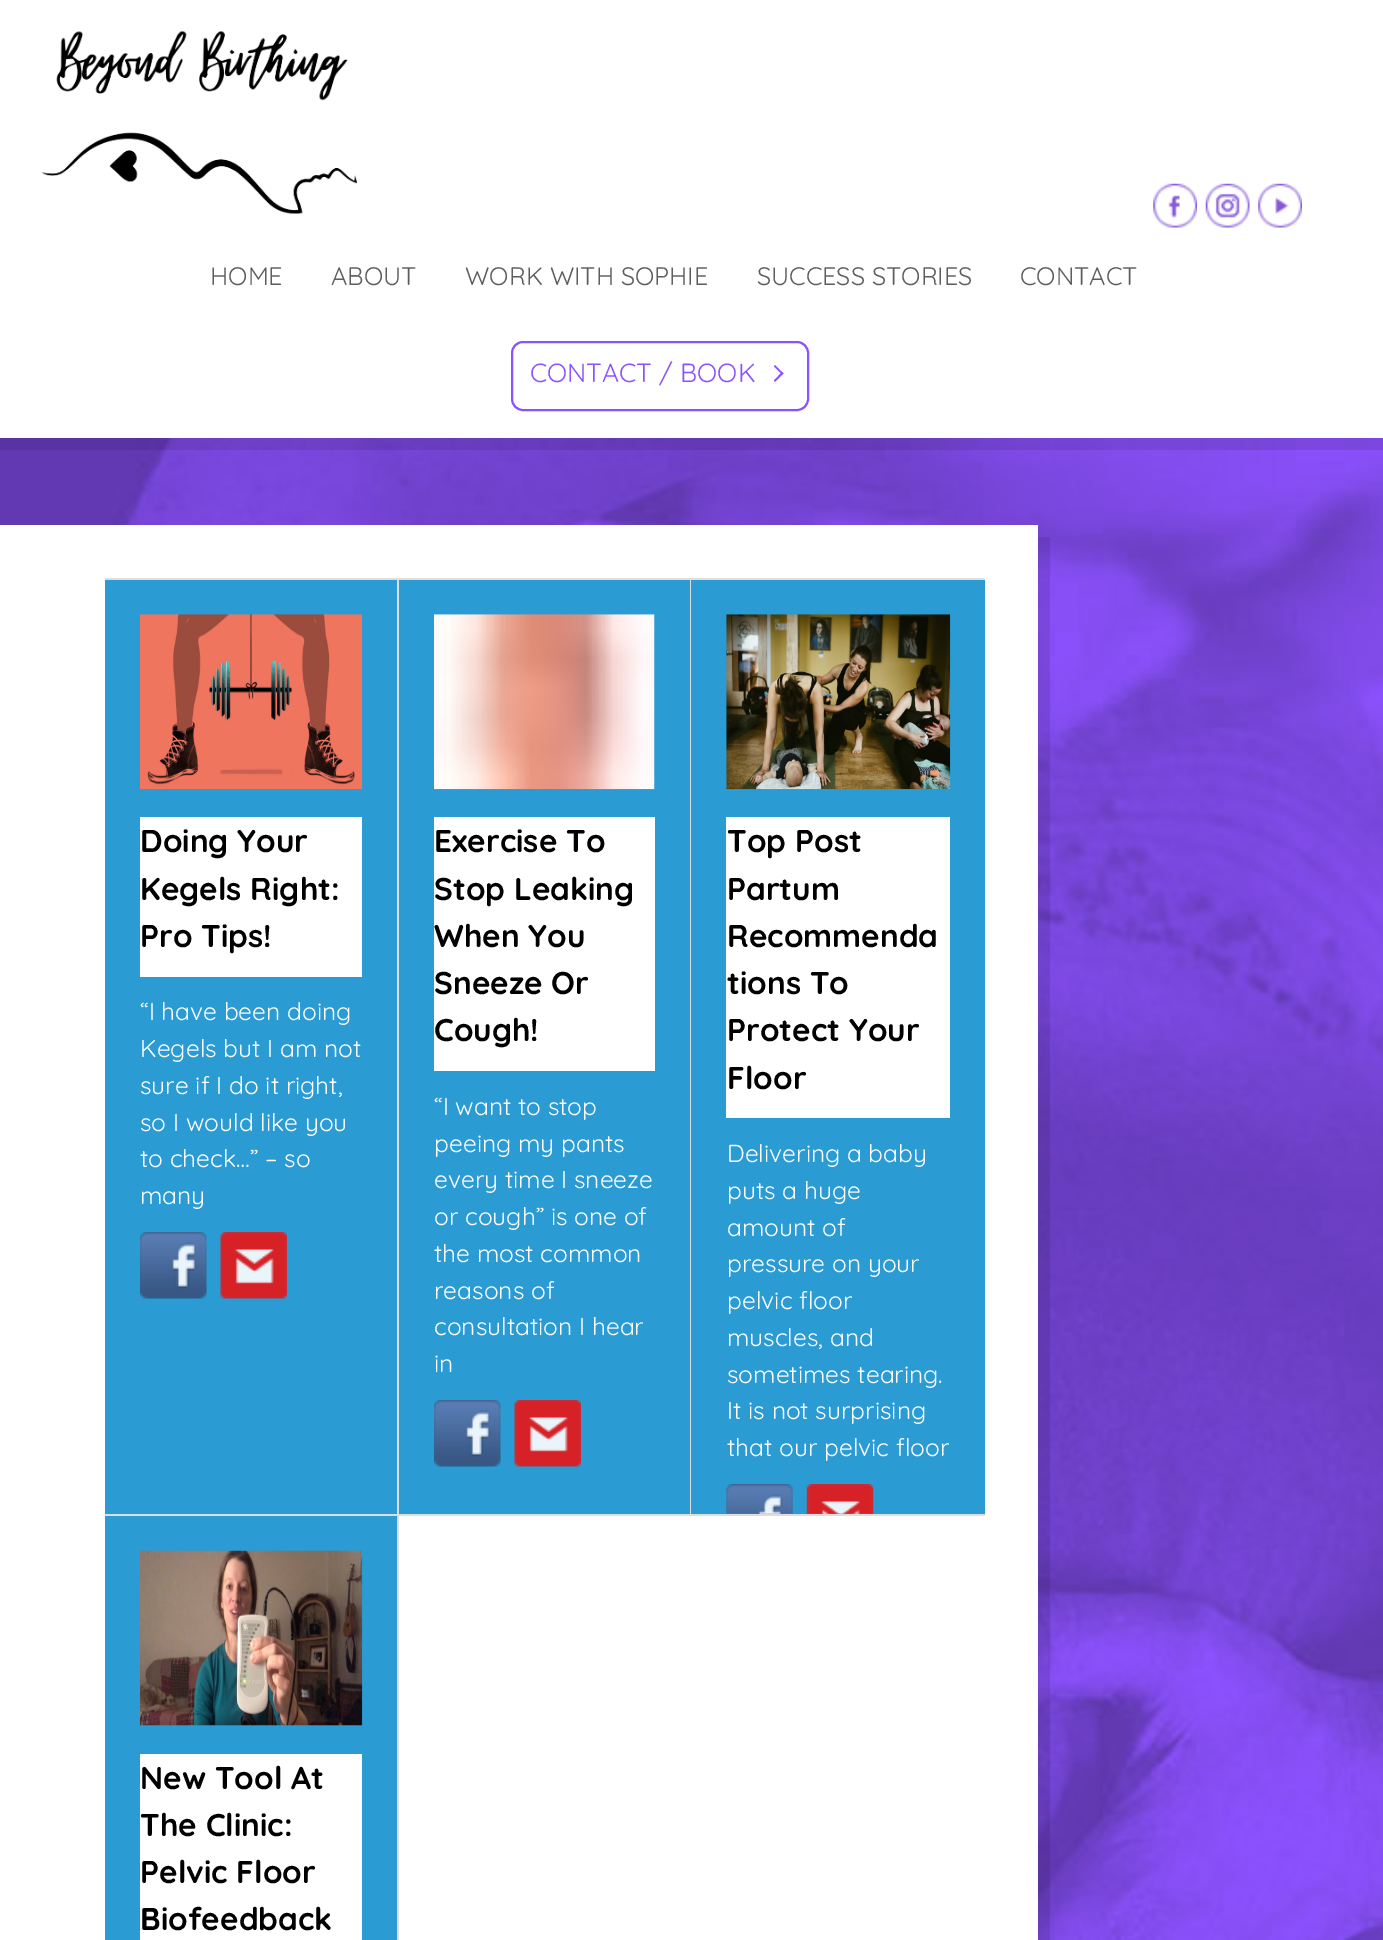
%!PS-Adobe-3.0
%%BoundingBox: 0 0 1383 1940
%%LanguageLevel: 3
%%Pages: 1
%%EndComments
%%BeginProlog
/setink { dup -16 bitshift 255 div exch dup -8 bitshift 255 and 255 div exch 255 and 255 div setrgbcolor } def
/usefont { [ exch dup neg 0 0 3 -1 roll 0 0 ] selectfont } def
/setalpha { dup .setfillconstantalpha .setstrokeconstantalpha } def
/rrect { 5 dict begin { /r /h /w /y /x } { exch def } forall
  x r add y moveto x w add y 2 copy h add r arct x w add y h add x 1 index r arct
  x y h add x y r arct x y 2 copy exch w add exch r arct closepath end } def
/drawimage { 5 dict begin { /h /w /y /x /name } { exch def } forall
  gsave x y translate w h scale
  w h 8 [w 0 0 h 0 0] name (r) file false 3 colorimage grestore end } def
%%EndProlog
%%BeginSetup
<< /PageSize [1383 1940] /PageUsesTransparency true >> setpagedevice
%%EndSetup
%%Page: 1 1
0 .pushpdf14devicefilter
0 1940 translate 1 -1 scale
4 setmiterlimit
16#FFFFFF setink
0 0 1383 1940 rectfill
(img5.raw) 0 438 1383 1502 drawimage
0.1 setalpha
16#000000 setink
0 438 1383 12 rectfill
1 setalpha
(img1.raw) 42 31 315 183 drawimage
(img2.raw) 1153 183 44 45 drawimage
(img3.raw) 1205 183 45 45 drawimage
(img4.raw) 1258 183 44 45 drawimage
/Quicksand-Light 25.25 usefont
16#5E5E5E setink
[
    [(HOME) 210 285]
    [(ABOUT) 331 285]
    [(WORK WITH SOPHIE) 465 285]
    [(SUCCESS STORIES) 757 285]
    [(CONTACT) 1020 285]
] { aload pop moveto show } forall
16#8C52FF setink
2 setlinewidth
512 342 296 68 11 rrect stroke
/Quicksand-Light 26.25 usefont
530 382 moveto (CONTACT / BOOK) show
775 365 moveto 783.5 373.5 lineto 782 374.5 lineto 774 366.5 lineto closepath fill
782 372 moveto 783.5 373.5 lineto 775 382 lineto 774 380.5 lineto closepath fill
0.1 setalpha
16#000000 setink
12 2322 moveto 12 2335 lineto 1050 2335 lineto 1050 537 lineto 1038 537 lineto 1038 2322 lineto closepath fill
1 setalpha
[
    [0 525 1038 1415 16#FFFFFF]
    [105 580 292 934 16#2A9BD3]
    [105 578 880 2 16#DDDDDD]
    [397 578 2 1362 16#DDDDDD]
    [105 1514 294 2 16#DDDDDD]
] { aload pop setink rectfill } forall
(img6.raw) 140 614 223 176 drawimage
16#FFFFFF setink
140 817 222 160 rectfill
/Quicksand-Bold 31.5 usefont
16#000000 setink
[
    [(Doing Your) 140 852]
    [(Kegels Right:) 140 900]
    [(Pro Tips!) 140 947]
] { aload pop moveto show } forall
/Quicksand-Light 24.5 usefont
16#FFFFFF setink
[
    [(“I have been doing) 140 1020]
    [(Kegels but I am not) 140 1057]
    [(sure if I do it right,) 140 1094]
    [(so I would like you) 140 1131]
    [(to check…” – so) 140 1167]
    [(many) 140 1204]
] { aload pop moveto show } forall
(img7.raw) 140 1232 67 67 drawimage
(img8.raw) 220 1232 67 67 drawimage
[
    [399 580 291 934 16#2A9BD3]
    [690 578 1 938 16#DDDDDD]
    [399 1514 586 2 16#DDDDDD]
] { aload pop setink rectfill } forall
(img9.raw) 434 614 221 176 drawimage
16#FFFFFF setink
434 817 221 254 rectfill
/Quicksand-Bold 31.5 usefont
16#000000 setink
[
    [(Exercise To) 434 852]
    [(Stop Leaking) 434 900]
    [(When You) 434 947]
    [(Sneeze Or) 434 994]
    [(Cough!) 434 1041]
] { aload pop moveto show } forall
/Quicksand-Light 24.5 usefont
16#FFFFFF setink
[
    [(“I want to stop) 434 1115]
    [(peeing my pants) 434 1152]
    [(every time I sneeze) 434 1188]
    [(or cough” is one of) 434 1225]
    [(the most common) 434 1262]
    [(reasons of) 434 1299]
    [(consultation I hear) 434 1335]
    [(in) 434 1372]
] { aload pop moveto show } forall
(img10.raw) 434 1400 67 67 drawimage
(img11.raw) 514 1400 67 67 drawimage
16#2A9BD3 setink
691 580 294 934 rectfill
(img12.raw) 726 614 225 176 drawimage
16#FFFFFF setink
726 817 224 301 rectfill
/Quicksand-Bold 31.5 usefont
16#000000 setink
[
    [(Top Post) 727 852]
    [(Partum) 727 900]
    [(Recommenda) 727 947]
    [(tions To) 727 994]
    [(Protect Your) 727 1041]
    [(Floor) 727 1089]
] { aload pop moveto show } forall
/Quicksand-Light 24.5 usefont
16#FFFFFF setink
[
    [(Delivering a baby) 727 1162]
    [(puts a huge) 727 1199]
    [(amount of) 727 1236]
    [(pressure on your) 727 1272]
    [(pelvic floor) 727 1309]
    [(muscles, and) 727 1346]
    [(sometimes tearing.) 727 1383]
    [(It is not surprising) 727 1419]
    [(that our pelvic floor) 727 1456]
] { aload pop moveto show } forall
(img13.raw) 726 1484 67 30 drawimage
(img14.raw) 806 1484 68 30 drawimage
16#2A9BD3 setink
105 1516 292 424 rectfill
(img15.raw) 140 1550 223 176 drawimage
16#FFFFFF setink
140 1754 222 186 rectfill
/Quicksand-Bold 31.5 usefont
16#000000 setink
[
    [(New Tool At) 140 1789]
    [(The Clinic:) 140 1836]
    [(Pelvic Floor) 140 1883]
    [(Biofeedback) 140 1930]
] { aload pop moveto show } forall
.poppdf14devicefilter showpage
%%EOF
